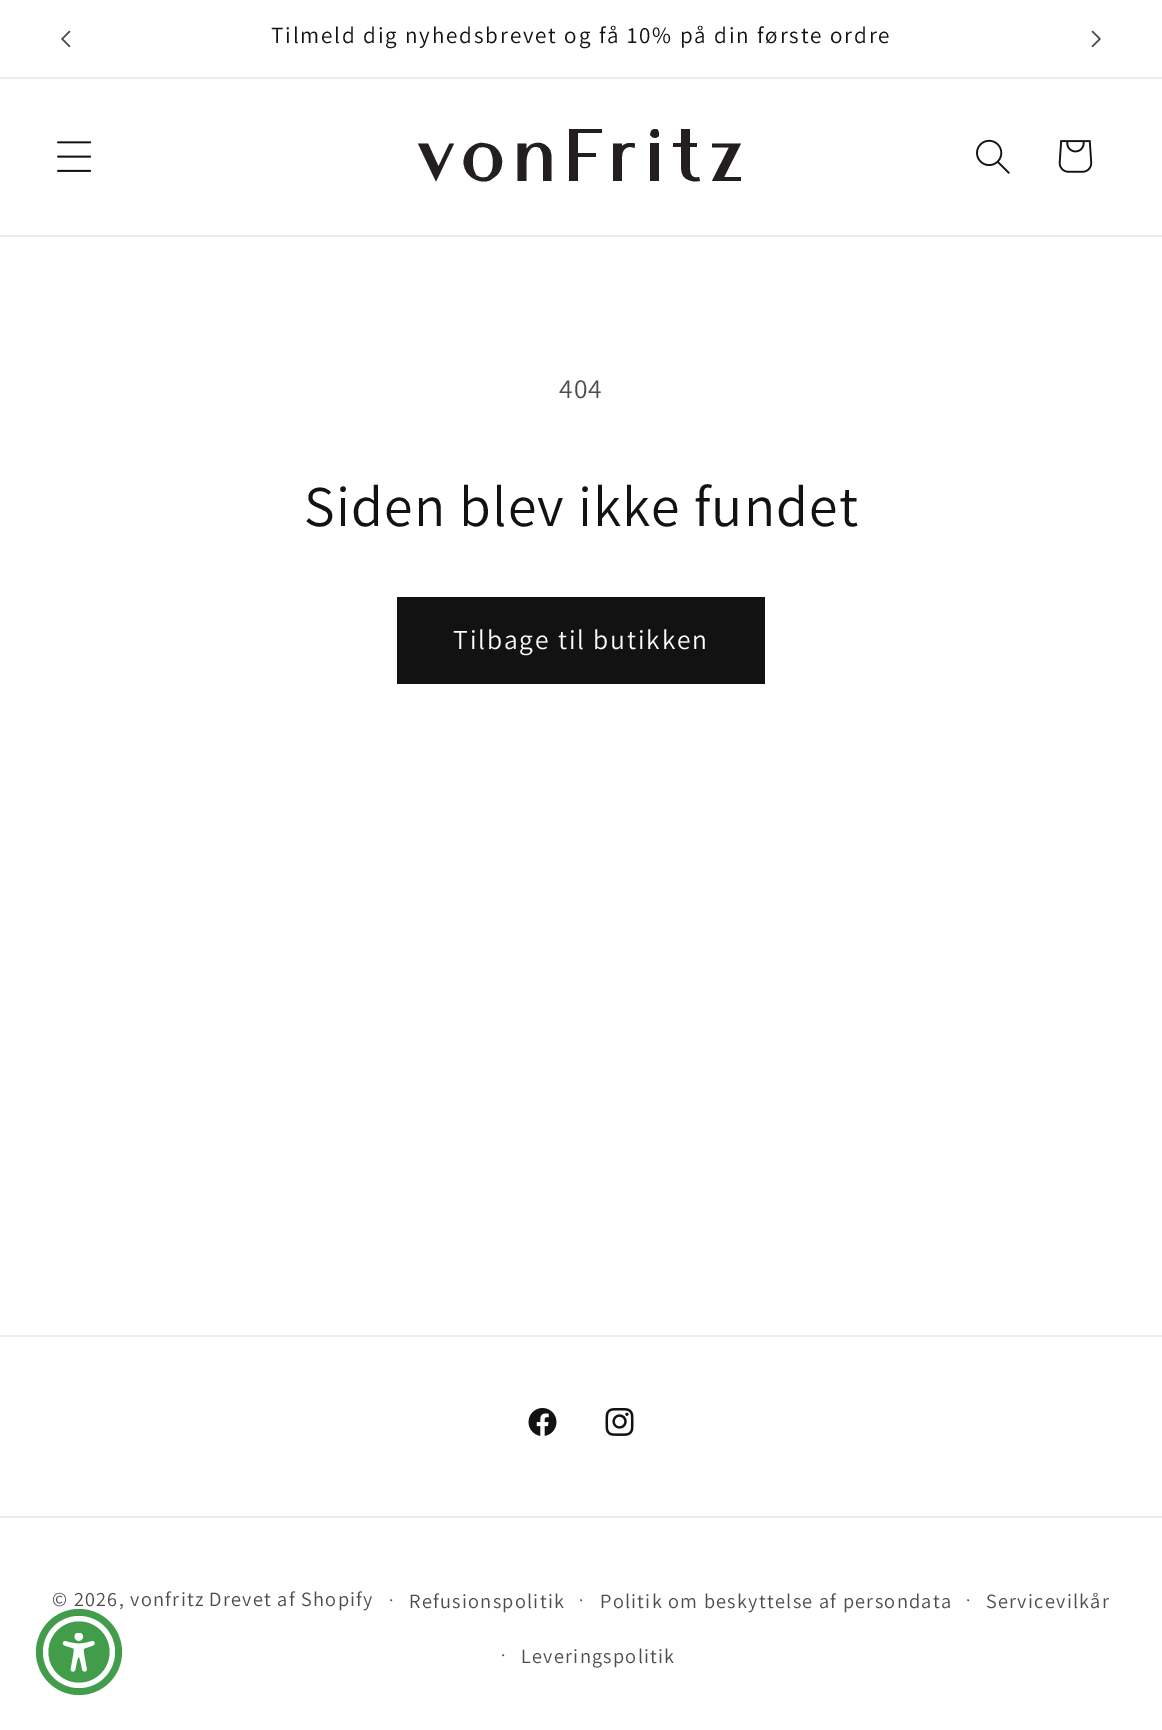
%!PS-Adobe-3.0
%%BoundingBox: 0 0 1162 1730
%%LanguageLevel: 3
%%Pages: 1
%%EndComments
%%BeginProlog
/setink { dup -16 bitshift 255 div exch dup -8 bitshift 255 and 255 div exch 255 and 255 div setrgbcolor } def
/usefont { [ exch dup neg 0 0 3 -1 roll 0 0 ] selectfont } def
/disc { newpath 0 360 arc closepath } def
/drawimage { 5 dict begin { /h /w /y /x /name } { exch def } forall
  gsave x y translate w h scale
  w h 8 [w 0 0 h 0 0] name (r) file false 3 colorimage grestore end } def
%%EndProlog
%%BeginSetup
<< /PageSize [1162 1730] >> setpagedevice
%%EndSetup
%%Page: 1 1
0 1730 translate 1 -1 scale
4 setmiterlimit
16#FFFFFF setink
0 0 1162 1730 rectfill
16#ECECEC setink
0 77 1162 2 rectfill
(img1.raw) 61 30 10 18 drawimage
/Assistant-Regular 23.1 usefont
16#121212 setink
271 43 moveto 1.85 0 (Tilmeld dig nyhedsbrevet og få 10% på din første ordre) ashow
(img2.raw) 1091 30 10 18 drawimage
16#ECECEC setink
0 235 1162 2 rectfill
(img3.raw) 57 141 35 31 drawimage
16#231F20 setink
438.5 166.5 moveto 428 143.5 lineto 418 143.5 lineto 436 181.5 lineto 454 143.5 lineto 449.5 143.5 lineto closepath fill
496.5 148.5 moveto 493.5 145.5 491 144.5 486.5 143.5 curveto 483 143 lineto 479 142.5 475.5 144 472.5 146 curveto 462 153 460.5 167 469.5 175.5 curveto 474.5 180.5 483.5 183.5 490.5 180 curveto 496.5 175.5 lineto 500.5 172 502.5 166 502 160 curveto 501.5 155.5 499.5 151.5 496.5 148.5 curveto closepath 483 177.5 moveto 480.5 177.5 478 176.5 476 175 curveto 475.5 173.5 lineto 472 168 472 157.5 474.5 152 curveto 475.5 150 477 148.5 479 147.5 curveto 482.5 147 486.5 146.5 489.5 149.5 curveto 490.5 151 lineto 493.5 156.5 494 167 491 172.5 curveto 490 174.5 488.5 176 487 177 curveto closepath eofill
550 150 moveto 549 148.5 548 147 546.5 146 curveto 542 141.5 533.5 142 529 146 curveto 526.5 149 lineto 526.5 143.5 lineto 517.5 143.5 lineto 517.5 181 lineto 526.5 181 lineto 526.5 169 lineto 526.5 161.5 525.5 154 531 148.5 curveto 534 146 537 146.5 540 148 curveto 541.5 151 lineto 542.5 152.5 543 155 543 158 curveto 543 181 lineto 551.5 181 lineto 551.5 159.5 lineto 551.5 156.5 551.5 154 550 150 curveto closepath fill
569 129 moveto 569 181 lineto 578 181 lineto 578 157 lineto 596 157 lineto 596 153 lineto 578 153 lineto 578 133 lineto 602 133 lineto 602 129 lineto closepath fill
630 143 moveto 627 143 624.5 144 622 146 curveto 622 143.5 lineto 613 143.5 lineto 613 181 lineto 622 181 lineto 622 166.5 lineto 622 162.5 621.5 157.5 622.5 153 curveto 624 147.5 629 145.5 634.5 148 curveto 635 143.5 lineto 632.5 143 lineto closepath fill
652 130 moveto 651 131 lineto 650 135 lineto 652 137 653 138 656 138 curveto 659 136 lineto 659 133 659 131 657 129 curveto 654 129 lineto closepath 659 181 moveto 659 143 lineto 650 143 lineto 650 181 lineto closepath eofill
699 177 moveto 688 180 690 167 690 161 curveto 690 147 lineto 697 147 lineto 697 143 lineto 690 143 lineto 690 129 lineto 681 129 lineto 681 143 lineto 673 143 lineto 673 147 lineto 681 147 lineto 681 164 lineto 681 173 682 179 692 181 curveto 695 182 698 181 700 181 curveto closepath fill
741 143.5 moveto 712 143.5 lineto 712 147.5 lineto 729 147.5 lineto 712 181 lineto 741 181 lineto 741 177 lineto 724 177 lineto closepath fill
(img4.raw) 976 139 34 35 drawimage
(img5.raw) 1058 140 35 33 drawimage
/Assistant-Regular 27.5 usefont
16#4D4D4D setink
559 398 moveto 1 0 (404) ashow
/Assistant-Regular 57.75 usefont
16#121212 setink
304 526 moveto 1.2 0 (Siden blev ikke fundet) ashow
397 597 368 87 rectfill
/Assistant-Regular 27.5 usefont
16#FFFFFF setink
453 649 moveto 1.85 0 (Tilbage til butikken) ashow
16#ECECEC setink
0 1335 1162 2 rectfill
(img6.raw) 528 1408 29 28 drawimage
(img7.raw) 605 1408 29 28 drawimage
0 1516 1162 2 rectfill
/Assistant-Regular 20.25 usefont
16#4D4D4D setink
52 1606 moveto 1.3 0 (© 2026, vonfritz) ashow
209 1606 moveto 1.3 0 (Drevet af Shopify) ashow
/Assistant-Regular 18 usefont
389 1606 moveto 1.3 0 (·) ashow
/Assistant-Regular 20.25 usefont
409 1608 moveto 1.3 0 (Refusionspolitik) ashow
/Assistant-Regular 18 usefont
579 1606 moveto 1.3 0 (·) ashow
/Assistant-Regular 20.25 usefont
600 1608 moveto 1.3 0 (Politik om beskyttelse af persondata) ashow
/Assistant-Regular 18 usefont
966 1606 moveto 1.3 0 (·) ashow
/Assistant-Regular 20.25 usefont
986 1608 moveto 1.3 0 (Servicevilkår) ashow
/Assistant-Regular 18 usefont
501 1661 moveto 1.3 0 (·) ashow
/Assistant-Regular 20.25 usefont
521 1663 moveto 1.3 0 (Leveringspolitik) ashow
16#419D4A setink
79 1652 43 disc fill
16#FFFFFF setink
79 1652 36 disc fill
16#419D4A setink
79 1652 30.5 disc fill
(img8.raw) 62 1633 33 39 drawimage
showpage
%%EOF
